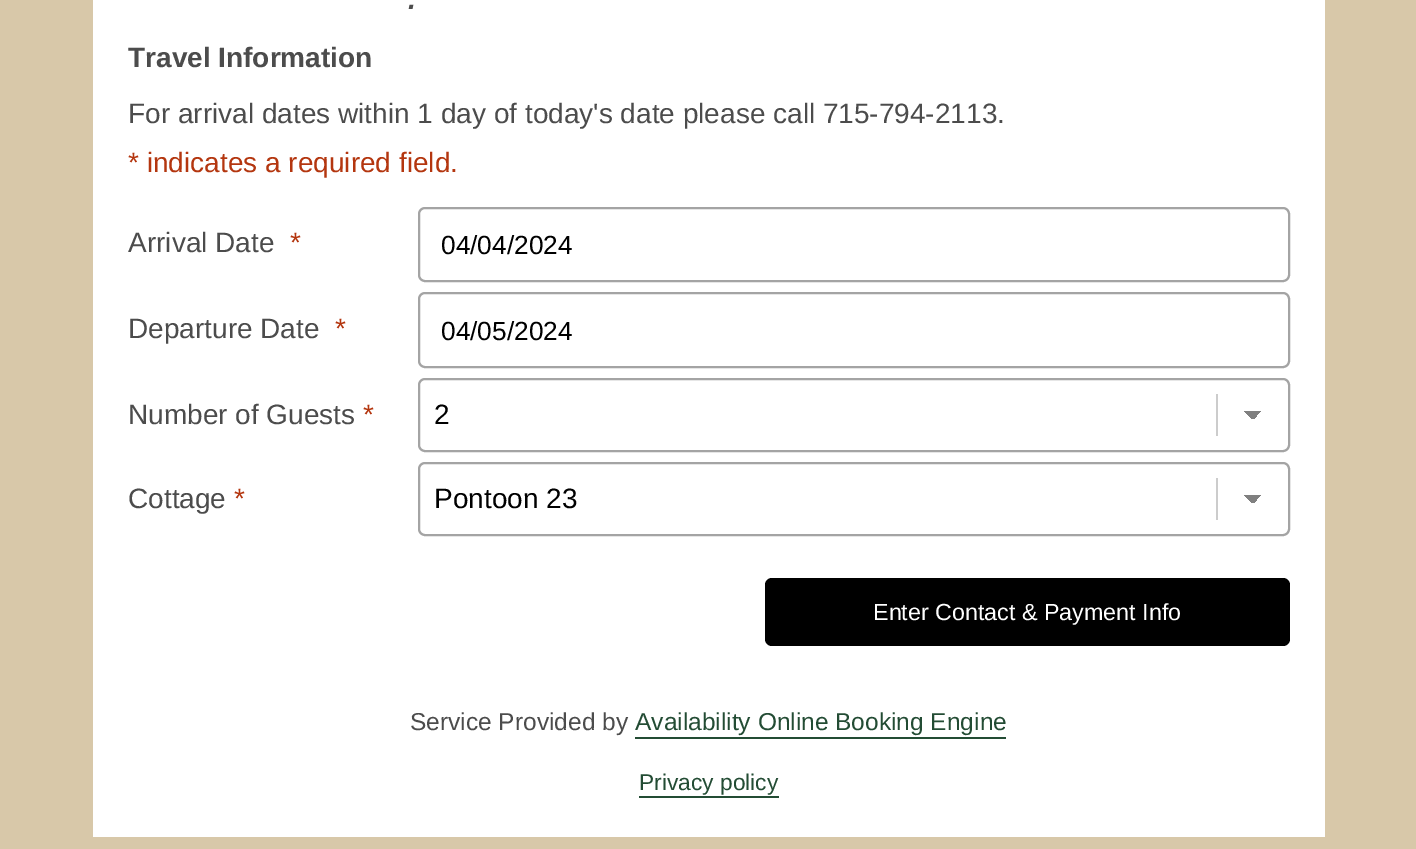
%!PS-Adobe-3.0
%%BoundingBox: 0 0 1416 849
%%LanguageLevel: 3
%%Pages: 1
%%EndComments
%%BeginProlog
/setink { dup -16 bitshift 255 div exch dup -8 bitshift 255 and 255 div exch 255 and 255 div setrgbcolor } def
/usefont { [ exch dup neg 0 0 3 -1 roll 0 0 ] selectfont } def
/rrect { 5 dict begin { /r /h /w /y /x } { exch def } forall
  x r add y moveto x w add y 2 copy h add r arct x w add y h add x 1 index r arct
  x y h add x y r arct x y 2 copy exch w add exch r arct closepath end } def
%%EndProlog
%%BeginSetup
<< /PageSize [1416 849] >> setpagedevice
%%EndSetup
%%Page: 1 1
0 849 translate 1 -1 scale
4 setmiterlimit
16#D8C8A9 setink
0 0 1416 849 rectfill
16#FFFFFF setink
93 0 1232 837 rectfill
/LiberationSans-BoldItalic 28 usefont
16#4C4C4C setink
408 9 moveto (.) show
/LiberationSans-Bold 28 usefont
128 67 moveto (Travel Information) show
/LiberationSans-Regular 28 usefont
128 123 moveto (For arrival dates within 1 day of today's date please call 715-794-2113.) show
16#B4360F setink
128 172 moveto (* indicates a required field.) show
16#4C4C4C setink
128 252 moveto (Arrival Date) show
16#B4360F setink
290 252 moveto (*) show
16#A4A4A4 setink
2 setlinewidth
419 208 870 73 6 rrect stroke
/LiberationSans-Regular 26.25 usefont
16#000000 setink
441 254 moveto (04/04/2024) show
/LiberationSans-Regular 28 usefont
16#4C4C4C setink
128 338 moveto (Departure Date) show
16#B4360F setink
335 338 moveto (*) show
16#A4A4A4 setink
419 293 870 74 6 rrect stroke
/LiberationSans-Regular 26.25 usefont
16#000000 setink
441 340 moveto (04/05/2024) show
/LiberationSans-Regular 28 usefont
16#4C4C4C setink
128 424 moveto (Number of Guests) show
16#B4360F setink
363 424 moveto (*) show
16#CCCCCC setink
1216 394 2 42 rectfill
gsave 1253 411 moveto 1262 411 lineto 1262 419 lineto 1253 419 lineto closepath clip newpath
<< /ShadingType 2 /ColorSpace /DeviceRGB /Coords [1253 411 1262 420] /Extend [true true] /Function << /FunctionType 3 /Domain [0 1] /Functions [<< /FunctionType 2 /Domain [0 1] /C0 [0.502 0.502 0.502] /C1 [0.502 0.502 0.502] /N 1 >> << /FunctionType 2 /Domain [0 1] /C0 [1 1 1] /C1 [1 1 1] /N 1 >>] /Bounds [0.5] /Encode [0 1 0 1] >> >> shfill grestore
gsave 1244 411 moveto 1253 411 lineto 1253 419 lineto 1244 419 lineto closepath clip newpath
<< /ShadingType 2 /ColorSpace /DeviceRGB /Coords [1244 420 1253 411] /Extend [true true] /Function << /FunctionType 3 /Domain [0 1] /Functions [<< /FunctionType 2 /Domain [0 1] /C0 [1 1 1] /C1 [1 1 1] /N 1 >> << /FunctionType 2 /Domain [0 1] /C0 [0.502 0.502 0.502] /C1 [0.502 0.502 0.502] /N 1 >>] /Bounds [0.5] /Encode [0 1 0 1] >> >> shfill grestore
16#A4A4A4 setink
419 379 870 72 6 rrect stroke
16#000000 setink
434 424 moveto (2) show
16#4C4C4C setink
128 508 moveto (Cottage) show
16#B4360F setink
234 508 moveto (*) show
16#CCCCCC setink
1216 478 2 42 rectfill
gsave 1253 495 moveto 1262 495 lineto 1262 503 lineto 1253 503 lineto closepath clip newpath
<< /ShadingType 2 /ColorSpace /DeviceRGB /Coords [1253 495 1262 504] /Extend [true true] /Function << /FunctionType 3 /Domain [0 1] /Functions [<< /FunctionType 2 /Domain [0 1] /C0 [0.502 0.502 0.502] /C1 [0.502 0.502 0.502] /N 1 >> << /FunctionType 2 /Domain [0 1] /C0 [1 1 1] /C1 [1 1 1] /N 1 >>] /Bounds [0.5] /Encode [0 1 0 1] >> >> shfill grestore
gsave 1244 495 moveto 1253 495 lineto 1253 503 lineto 1244 503 lineto closepath clip newpath
<< /ShadingType 2 /ColorSpace /DeviceRGB /Coords [1244 504 1253 495] /Extend [true true] /Function << /FunctionType 3 /Domain [0 1] /Functions [<< /FunctionType 2 /Domain [0 1] /C0 [1 1 1] /C1 [1 1 1] /N 1 >> << /FunctionType 2 /Domain [0 1] /C0 [0.502 0.502 0.502] /C1 [0.502 0.502 0.502] /N 1 >>] /Bounds [0.5] /Encode [0 1 0 1] >> >> shfill grestore
16#A4A4A4 setink
419 463 870 72 6 rrect stroke
16#000000 setink
434 508 moveto (Pontoon 23) show
765 578 525 68 7 rrect fill
/LiberationSans-Regular 23.3 usefont
16#FFFFFF setink
873 620 moveto (Enter Contact & Payment Info) show
/LiberationSans-Regular 24.5 usefont
16#4C4C4C setink
410 730 moveto (Service Provided by) show
16#234C34 setink
635 730 moveto (Availability Online Booking Engine) show
635 737 371 2 rectfill
/LiberationSans-Regular 22.75 usefont
639 790 moveto (Privacy policy) show
639 796 140 2 rectfill
showpage
%%EOF
